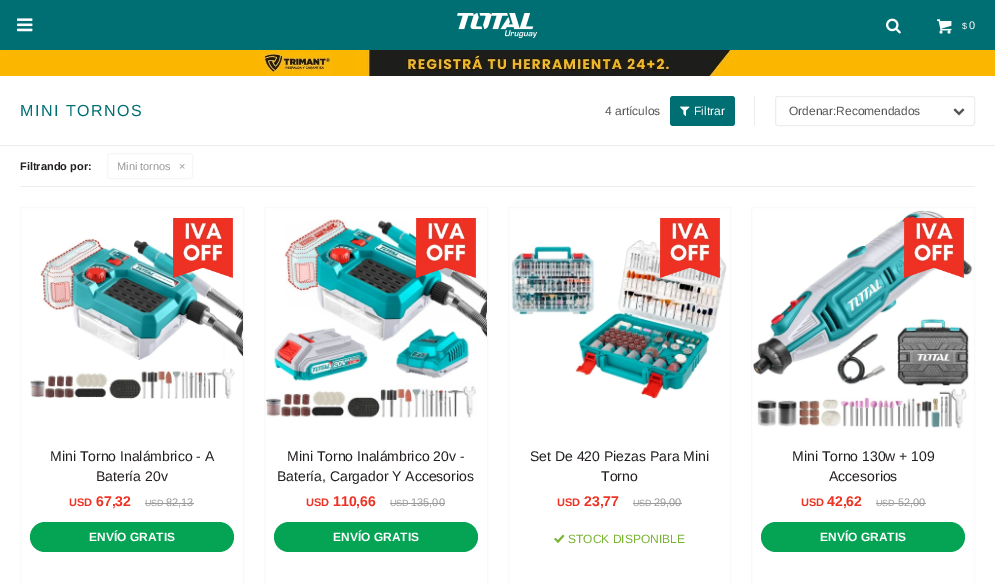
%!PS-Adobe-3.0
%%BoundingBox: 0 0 995 585
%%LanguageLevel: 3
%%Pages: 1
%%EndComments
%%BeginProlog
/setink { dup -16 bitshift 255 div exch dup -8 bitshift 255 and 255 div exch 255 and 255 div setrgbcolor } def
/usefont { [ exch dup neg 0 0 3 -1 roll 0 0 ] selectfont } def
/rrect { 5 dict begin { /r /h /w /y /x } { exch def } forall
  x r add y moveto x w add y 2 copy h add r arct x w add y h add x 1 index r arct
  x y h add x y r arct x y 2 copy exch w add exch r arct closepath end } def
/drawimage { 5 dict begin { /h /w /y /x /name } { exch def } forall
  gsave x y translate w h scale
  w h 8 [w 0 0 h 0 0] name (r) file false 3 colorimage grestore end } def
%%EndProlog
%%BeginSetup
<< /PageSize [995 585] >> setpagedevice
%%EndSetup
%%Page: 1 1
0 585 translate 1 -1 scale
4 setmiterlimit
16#FFFFFF setink
0 0 995 585 rectfill
16#006F74 setink
0 0 995 50 rectfill
(img1.raw) 17 18 16 14 drawimage
(img2.raw) 457 13 81 25 drawimage
(img3.raw) 886 18 15 16 drawimage
(img4.raw) 937 19 15 15 drawimage
/LiberationSans-Regular 9 usefont
16#FFFFFF setink
962 29 moveto ($) show
/LiberationSans-Regular 11 usefont
969 29 moveto (0) show
(img5.raw) 0 50 995 26 drawimage
/LiberationSans-Regular 16 usefont
16#006F74 setink
20 116 moveto 1.5 0 (MINI TORNOS) ashow
/LiberationSans-Regular 12 usefont
16#555555 setink
605 115 moveto (4 artículos) show
16#006F74 setink
670 96 65 30 3 rrect fill
(img6.raw) 680 106 10 10 drawimage
16#FFFFFF setink
694 115 moveto (Filtrar) show
16#EDEDED setink
754 96 1 30 rectfill
(img7.raw) 953 108 12 8 drawimage
775.5 96.5 199 29 2.5 rrect stroke
16#555555 setink
789 115 moveto (Ordenar:Recomendados) show
16#EDEDED setink
0 145 995 1 rectfill
20 186 955 1 rectfill
/LiberationSans-Bold 11 usefont
16#231F20 setink
20 170 moveto (Filtrando por:) show
16#F6F6F6 setink
107.5 153.5 85 25 2.5 rrect stroke
/LiberationSans-Regular 11 usefont
16#999999 setink
117 170 moveto (Mini tornos) show
179 170 moveto (×) show
(img9.raw) 30 238 213 161 drawimage
(img8.raw) 173 218 60 60 drawimage
145 503 49 1 rectfill
16#04A454 setink
30 522 204 30 15 rrect fill
16#F9F9F9 setink
20.5 207.5 223 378 rectstroke
/LiberationSans-Regular 14 usefont
16#231F20 setink
50 461 moveto (Mini Torno Inalámbrico - A) show
96 481 moveto (Batería 20v) show
/LiberationSans-Bold 11 usefont
16#EE3224 setink
69 506 moveto (USD) show
/LiberationSans-Bold 14 usefont
96 506 moveto (67,32) show
/LiberationSans-Regular 9 usefont
16#999999 setink
145 506 moveto (USD) show
/LiberationSans-Regular 11 usefont
166 506 moveto (82,13) show
/LiberationSans-Bold 12 usefont
16#FFFFFF setink
89 541 moveto (ENVÍO GRATIS) show
(img11.raw) 265 219 222 199 drawimage
(img10.raw) 416 218 60 60 drawimage
16#999999 setink
390 503 55 1 rectfill
16#04A454 setink
274 522 204 30 15 rrect fill
16#F9F9F9 setink
264.5 207.5 223 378 rectstroke
/LiberationSans-Regular 14 usefont
16#231F20 setink
287 461 moveto (Mini Torno Inalámbrico 20v -) show
277 481 moveto (Batería, Cargador Y Accesorios) show
/LiberationSans-Bold 11 usefont
16#EE3224 setink
306 506 moveto (USD) show
/LiberationSans-Bold 14 usefont
333 506 moveto (110,66) show
/LiberationSans-Regular 9 usefont
16#999999 setink
390 506 moveto (USD) show
/LiberationSans-Regular 11 usefont
411 506 moveto (135,00) show
/LiberationSans-Bold 12 usefont
16#FFFFFF setink
333 541 moveto (ENVÍO GRATIS) show
(img13.raw) 511 240 216 159 drawimage
(img12.raw) 660 218 60 60 drawimage
16#999999 setink
633 503 49 1 rectfill
(img14.raw) 554 534 11 10 drawimage
16#F9F9F9 setink
508.5 207.5 222 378 rectstroke
/LiberationSans-Regular 14 usefont
16#231F20 setink
530 461 moveto (Set De 420 Piezas Para Mini) show
601 481 moveto (Torno) show
/LiberationSans-Bold 11 usefont
16#EE3224 setink
557 506 moveto (USD) show
/LiberationSans-Bold 14 usefont
584 506 moveto (23,77) show
/LiberationSans-Regular 9 usefont
16#999999 setink
633 506 moveto (USD) show
/LiberationSans-Regular 11 usefont
654 506 moveto (29,00) show
/LiberationSans-Regular 12 usefont
16#78B432 setink
568 543 moveto (STOCK DISPONIBLE) show
(img15.raw) 753 210 220 219 drawimage
(img16.raw) 904 218 60 60 drawimage
16#999999 setink
876 503 50 1 rectfill
16#04A454 setink
761 522 204 30 15 rrect fill
16#F9F9F9 setink
751.5 207.5 223 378 rectstroke
/LiberationSans-Regular 14 usefont
16#231F20 setink
792 461 moveto (Mini Torno 130w + 109) show
829 481 moveto (Accesorios) show
/LiberationSans-Bold 11 usefont
16#EE3224 setink
801 506 moveto (USD) show
/LiberationSans-Bold 14 usefont
827 506 moveto (42,62) show
/LiberationSans-Regular 9 usefont
16#999999 setink
876 506 moveto (USD) show
/LiberationSans-Regular 11 usefont
898 506 moveto (52,00) show
/LiberationSans-Bold 12 usefont
16#FFFFFF setink
820 541 moveto (ENVÍO GRATIS) show
showpage
%%EOF
